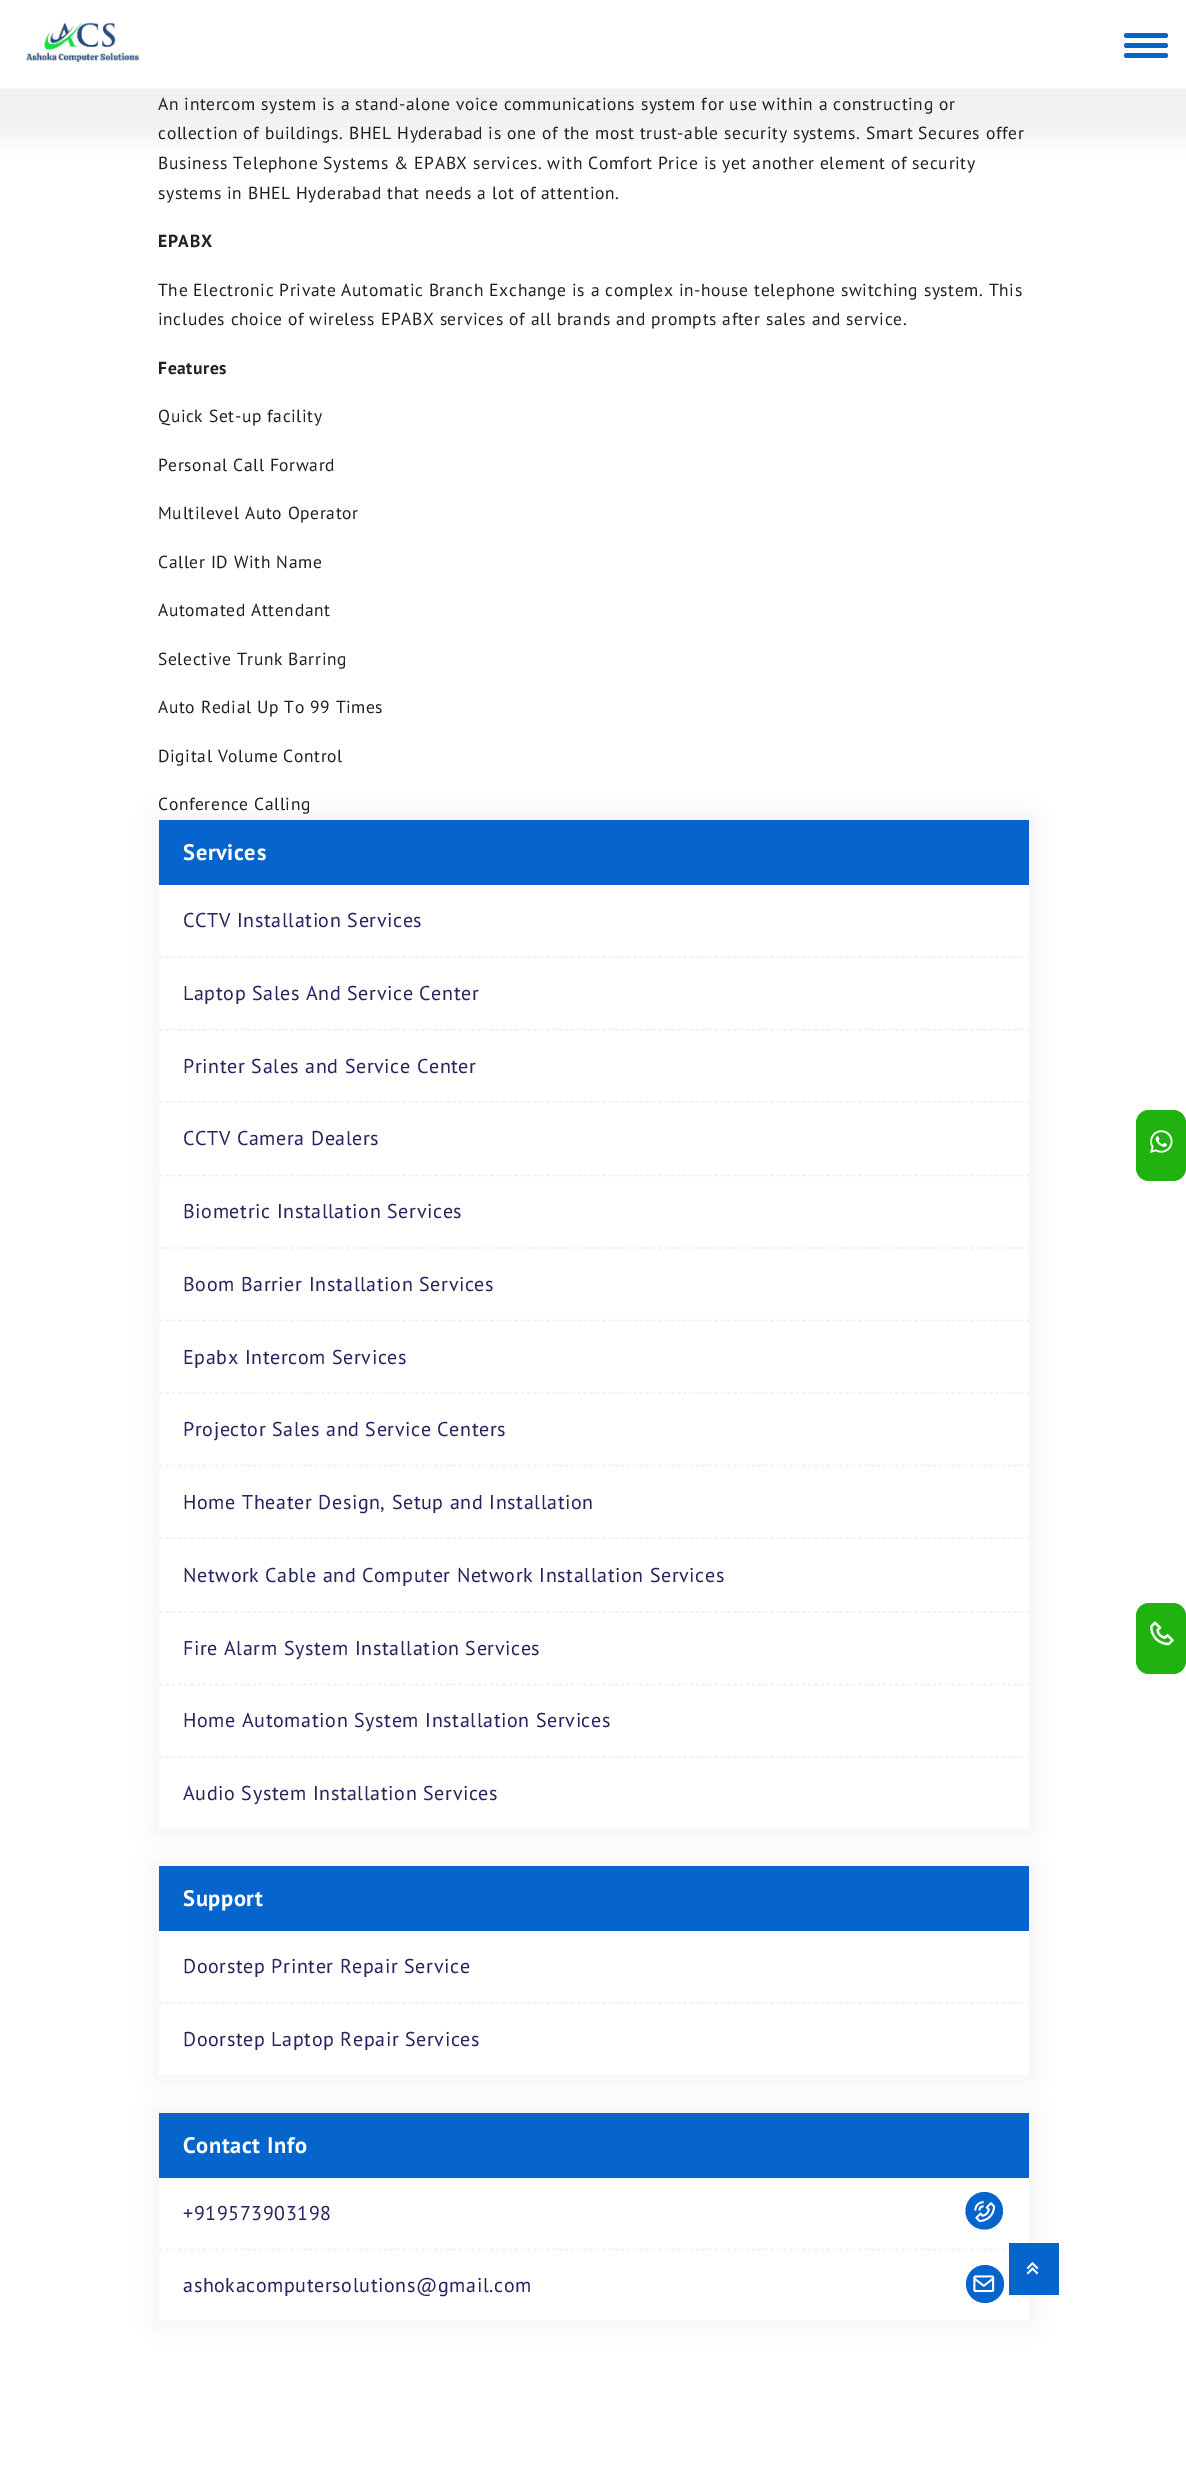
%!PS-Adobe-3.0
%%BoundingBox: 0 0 1186 2466
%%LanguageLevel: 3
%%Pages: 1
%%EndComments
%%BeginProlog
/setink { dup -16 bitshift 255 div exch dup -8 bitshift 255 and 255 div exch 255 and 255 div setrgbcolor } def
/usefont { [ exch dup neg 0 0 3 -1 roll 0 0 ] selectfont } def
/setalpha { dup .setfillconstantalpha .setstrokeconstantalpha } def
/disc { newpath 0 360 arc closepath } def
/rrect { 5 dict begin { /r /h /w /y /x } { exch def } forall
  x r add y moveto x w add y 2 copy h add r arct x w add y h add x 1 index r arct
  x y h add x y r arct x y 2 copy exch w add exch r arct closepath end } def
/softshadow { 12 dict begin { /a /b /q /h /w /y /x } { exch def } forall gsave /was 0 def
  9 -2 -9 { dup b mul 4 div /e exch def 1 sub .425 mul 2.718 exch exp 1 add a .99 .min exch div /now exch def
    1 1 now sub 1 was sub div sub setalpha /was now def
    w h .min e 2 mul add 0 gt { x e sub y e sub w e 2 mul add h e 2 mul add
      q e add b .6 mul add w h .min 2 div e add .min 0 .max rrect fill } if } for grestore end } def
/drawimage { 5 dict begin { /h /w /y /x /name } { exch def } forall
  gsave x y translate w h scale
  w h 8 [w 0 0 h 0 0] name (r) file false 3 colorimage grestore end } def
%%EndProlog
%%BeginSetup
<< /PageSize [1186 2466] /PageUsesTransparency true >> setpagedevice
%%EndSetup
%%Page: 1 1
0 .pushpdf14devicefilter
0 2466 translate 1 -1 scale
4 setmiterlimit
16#FFFFFF setink
0 0 1186 2466 rectfill
16#000000 setink
-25 0 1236 139 0 12.5 0.05 softshadow
16#FFFFFF setink
0 0 1186 88 rectfill
16#F7F7F7 setink
0 88 1186 1 rectfill
16#0664CD setink
1124 33 44 5 2.5 rrect fill
1124 43 44 5 2.5 rrect fill
1124 53 44 5 2.5 rrect fill
(img1.raw) 26 22 114 41 drawimage
/PTSans-Regular 17.5 usefont
16#212121 setink
158 110 moveto 0.62 0 (An intercom system is a stand-alone voice communications system for use within a constructing or) ashow
158 139 moveto 0.62 0 (collection of buildings. BHEL Hyderabad is one of the most trust-able security systems. Smart Secures offer) ashow
158 169 moveto 0.62 0 (Business Telephone Systems & EPABX services. with Comfort Price is yet another element of security) ashow
158 199 moveto 0.62 0 (systems in BHEL Hyderabad that needs a lot of attention.) ashow
/PTSans-Bold 17.5 usefont
158 247 moveto 0.62 0 (EPABX) ashow
/PTSans-Regular 17.5 usefont
158 296 moveto 0.62 0 (The Electronic Private Automatic Branch Exchange is a complex in-house telephone switching system. This) ashow
158 325 moveto 0.62 0 (includes choice of wireless EPABX services of all brands and prompts after sales and service.) ashow
/PTSans-Bold 17.5 usefont
158 374 moveto 0.62 0 (Features) ashow
/PTSans-Regular 17.5 usefont
158 422 moveto 0.62 0 (Quick Set-up facility) ashow
158 471 moveto 0.62 0 (Personal Call Forward) ashow
158 519 moveto 0.62 0 (Multilevel Auto Operator) ashow
158 568 moveto 0.62 0 (Caller ID With Name) ashow
158 616 moveto 0.62 0 (Automated Attendant) ashow
158 665 moveto 0.62 0 (Selective Trunk Barring) ashow
158 713 moveto 0.62 0 (Auto Redial Up To 99 Times) ashow
158 762 moveto 0.62 0 (Digital Volume Control) ashow
158 810 moveto 0.62 0 (Conference Calling) ashow
16#000000 setink
155 816 878 1017 0 12.5 0.05 softshadow
16#FFFFFF setink
159 885 870 944 rectfill
16#0664CD setink
159 820 870 65 rectfill
/PTSans-Bold 22.5 usefont
16#FFFFFF setink
183 860 moveto 0.62 0 (Services) ashow
16#EEEEEE setink
1.2 setlinewidth
[3.75 2.49] 0 setdash
159 957 moveto 1029 957 lineto stroke
/PTSans-Regular 20 usefont
16#25245E setink
183 927 moveto 0.62 0 (CCTV Installation Services) ashow
16#EEEEEE setink
159 1029.5 moveto 1029 1029.5 lineto stroke
16#25245E setink
183 1000 moveto 0.62 0 (Laptop Sales And Service Center) ashow
16#EEEEEE setink
159 1102 moveto 1029 1102 lineto stroke
16#25245E setink
183 1073 moveto 0.62 0 (Printer Sales and Service Center) ashow
16#EEEEEE setink
159 1175.5 moveto 1029 1175.5 lineto stroke
16#25245E setink
183 1145 moveto 0.62 0 (CCTV Camera Dealers) ashow
16#EEEEEE setink
159 1248 moveto 1029 1248 lineto stroke
16#25245E setink
183 1218 moveto 0.62 0 (Biometric Installation Services) ashow
16#EEEEEE setink
159 1320.5 moveto 1029 1320.5 lineto stroke
16#25245E setink
183 1291 moveto 0.62 0 (Boom Barrier Installation Services) ashow
16#EEEEEE setink
159 1393 moveto 1029 1393 lineto stroke
16#25245E setink
183 1364 moveto 0.62 0 (Epabx Intercom Services) ashow
16#EEEEEE setink
159 1465.5 moveto 1029 1465.5 lineto stroke
16#25245E setink
183 1436 moveto 0.62 0 (Projector Sales and Service Centers) ashow
16#EEEEEE setink
159 1538 moveto 1029 1538 lineto stroke
16#25245E setink
183 1509 moveto 0.62 0 (Home Theater Design, Setup and Installation) ashow
16#EEEEEE setink
159 1612 moveto 1029 1612 lineto stroke
16#25245E setink
183 1582 moveto 0.62 0 (Network Cable and Computer Network Installation Services) ashow
16#EEEEEE setink
159 1684.5 moveto 1029 1684.5 lineto stroke
16#25245E setink
183 1655 moveto 0.62 0 (Fire Alarm System Installation Services) ashow
16#EEEEEE setink
159 1757 moveto 1029 1757 lineto stroke
16#25245E setink
183 1727 moveto 0.62 0 (Home Automation System Installation Services) ashow
183 1800 moveto 0.62 0 (Audio System Installation Services) ashow
16#000000 setink
155 1863 878 216 0 12.5 0.05 softshadow
16#FFFFFF setink
159 1931 870 144 rectfill
16#0664CD setink
159 1866 870 65 rectfill
/PTSans-Bold 22.5 usefont
16#FFFFFF setink
183 1906 moveto 0.62 0 (Support) ashow
16#EEEEEE setink
159 2003 moveto 1029 2003 lineto stroke
/PTSans-Regular 20 usefont
16#25245E setink
183 1973 moveto 0.62 0 (Doorstep Printer Repair Service) ashow
183 2046 moveto 0.62 0 (Doorstep Laptop Repair Services) ashow
16#000000 setink
155 2109 878 216 0 12.5 0.05 softshadow
16#FFFFFF setink
159 2178 870 143 rectfill
16#0664CD setink
159 2113 870 65 rectfill
/PTSans-Bold 22.5 usefont
16#FFFFFF setink
183 2153 moveto 0.62 0 (Contact Info) ashow
16#EEEEEE setink
159 2249.5 moveto 1029 2249.5 lineto stroke
/PTSans-Regular 20 usefont
16#25245E setink
183 2220 moveto 0.62 0 (+919573903198) ashow
16#0664CD setink
965.5 2211 moveto 965.5 2200.5 974 2192 984.5 2192 curveto 994.5 2192 1003 2200.5 1003 2211 curveto 1003 2221.5 994.5 2229.5 984.5 2229.5 curveto 974 2229.5 965.5 2221.5 965.5 2211 curveto closepath fill
(img2.raw) 974 2201 22 21 drawimage
16#25245E setink
183 2292 moveto 0.62 0 (ashokacomputersolutions@gmail.com) ashow
16#0664CD setink
985 2284 19 disc fill
(img3.raw) 973 2275 22 18 drawimage
16#20B20F setink
1136 1110 50 71 13 rrect fill
(img4.raw) 1150 1130 23 23 drawimage
1136 1603 50 71 13 rrect fill
(img5.raw) 1150 1621 24 25 drawimage
16#0664CD setink
1009 2243 50 52 rectfill
(img6.raw) 1026 2262 13 13 drawimage
.poppdf14devicefilter showpage
%%EOF
